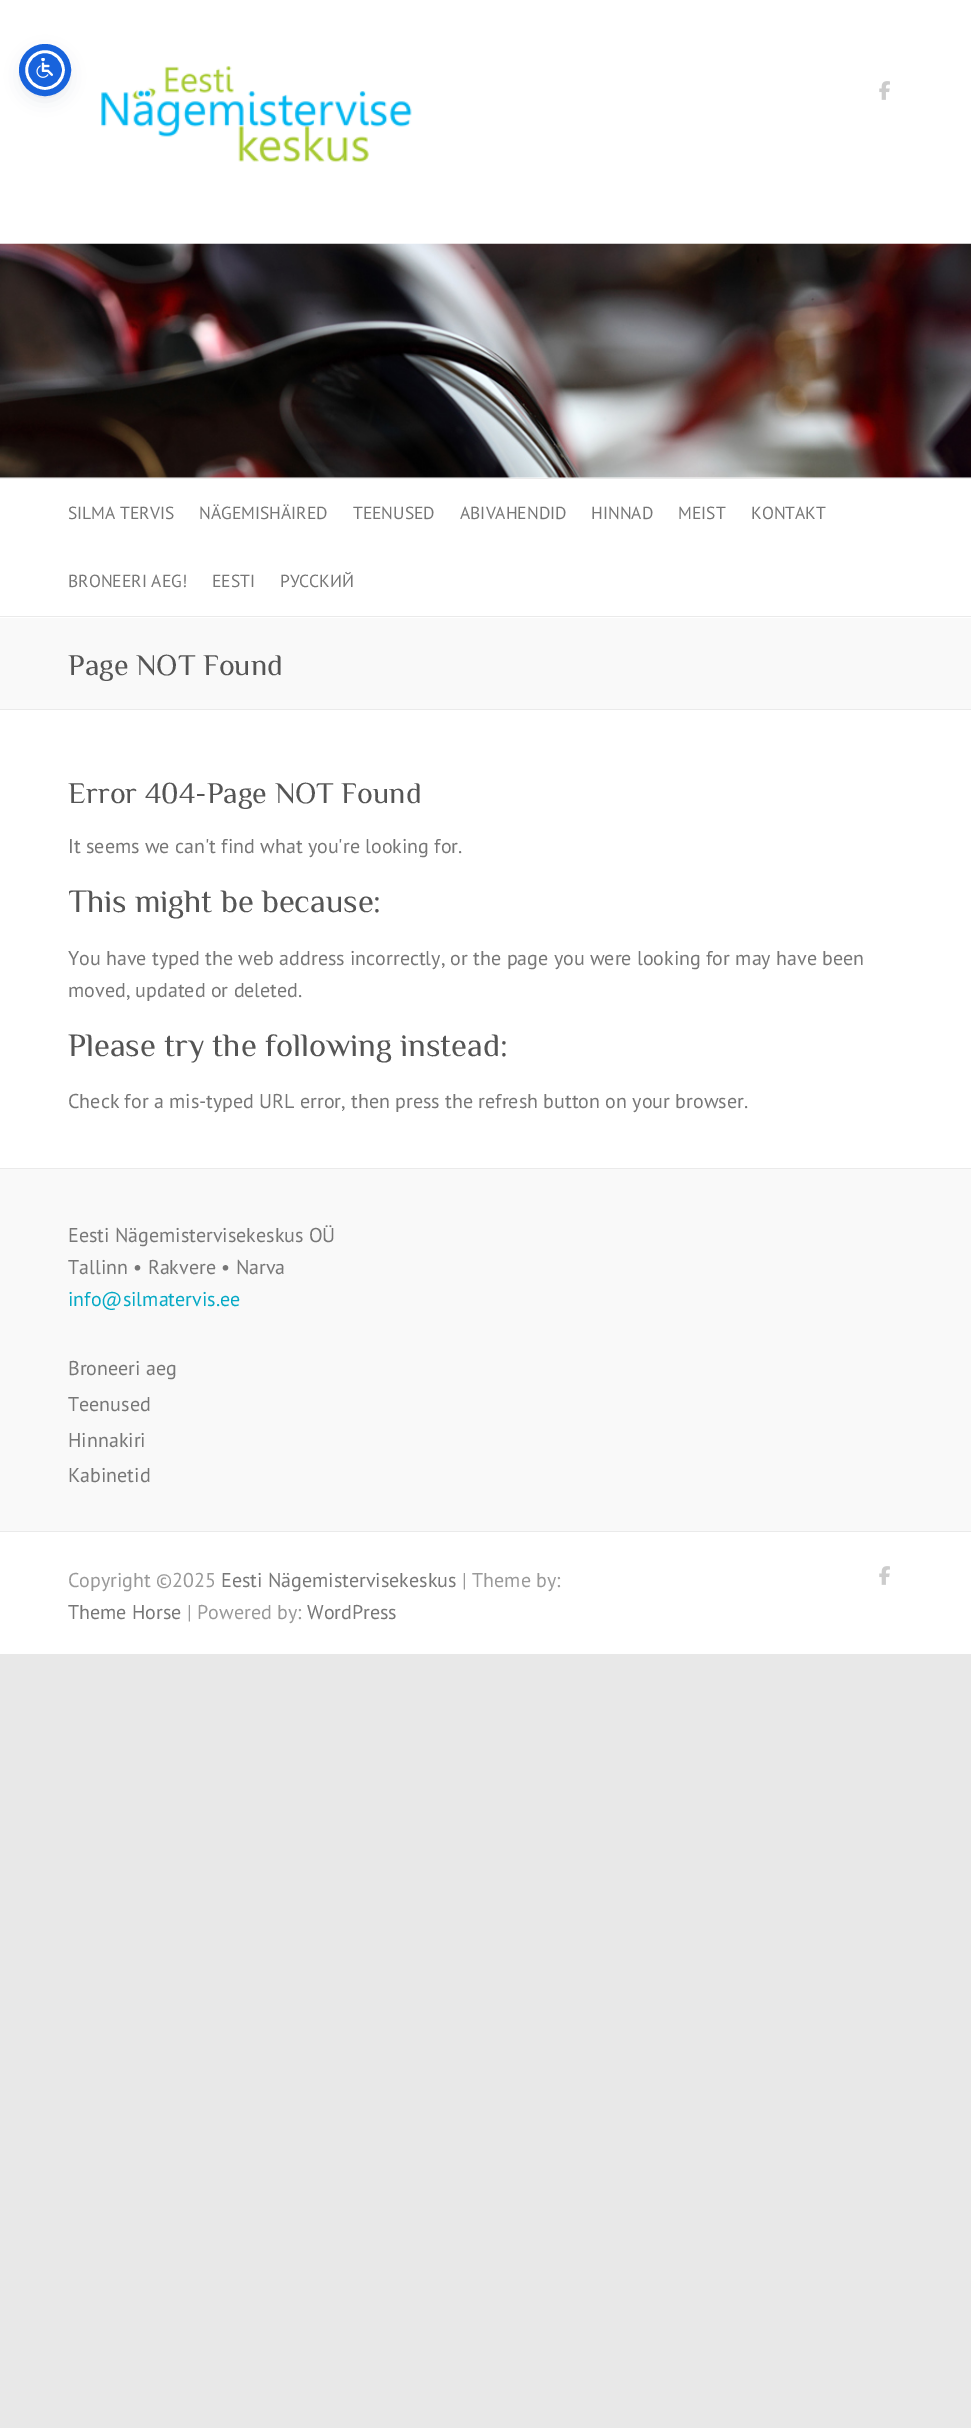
%!PS-Adobe-3.0
%%BoundingBox: 0 0 971 2428
%%LanguageLevel: 3
%%Pages: 1
%%EndComments
%%BeginProlog
/setink { dup -16 bitshift 255 div exch dup -8 bitshift 255 and 255 div exch 255 and 255 div setrgbcolor } def
/usefont { [ exch dup neg 0 0 3 -1 roll 0 0 ] selectfont } def
/setalpha { dup .setfillconstantalpha .setstrokeconstantalpha } def
/disc { newpath 0 360 arc closepath } def
/rrect { 5 dict begin { /r /h /w /y /x } { exch def } forall
  x r add y moveto x w add y 2 copy h add r arct x w add y h add x 1 index r arct
  x y h add x y r arct x y 2 copy exch w add exch r arct closepath end } def
/softshadow { 12 dict begin { /a /b /q /h /w /y /x } { exch def } forall gsave /was 0 def
  9 -2 -9 { dup b mul 4 div /e exch def 1 sub .425 mul 2.718 exch exp 1 add a .99 .min exch div /now exch def
    1 1 now sub 1 was sub div sub setalpha /was now def
    w h .min e 2 mul add 0 gt { x e sub y e sub w e 2 mul add h e 2 mul add
      q e add b .6 mul add w h .min 2 div e add .min 0 .max rrect fill } if } for grestore end } def
/drawimage { 5 dict begin { /h /w /y /x /name } { exch def } forall
  gsave x y translate w h scale
  w h 8 [w 0 0 h 0 0] name (r) file false 3 colorimage grestore end } def
%%EndProlog
%%BeginSetup
<< /PageSize [971 2428] /PageUsesTransparency true >> setpagedevice
%%EndSetup
%%Page: 1 1
0 .pushpdf14devicefilter
0 2428 translate 1 -1 scale
4 setmiterlimit
16#E8E8E8 setink
0 0 971 2428 rectfill
16#FFFFFF setink
0 0 971 1654 rectfill
16#5D6494 setink
25 53 40 40 20 2.5 0.2 softshadow
16#252C61 setink
25 56 40 40 20 9.5 0.15 softshadow
16#1863DC setink
45 70 18.5 disc gsave fill grestore
16#FFFFFF setink
3 setlinewidth
stroke
16#1863DC setink
6 setlinewidth
45 70 23 disc stroke
(img1.raw) 36 58 17 20 drawimage
(img2.raw) 101 66 311 97 drawimage
(img3.raw) 879 81 11 19 drawimage
(img4.raw) 0 243 971 235 drawimage
16#EAEAEA setink
0 478 971 1 rectfill
0 616 971 1 rectfill
/PTSans-Regular 17.5 usefont
16#777777 setink
[
    [(SILMA TERVIS) 68 519]
    [(NÄGEMISHÄIRED) 199 519]
    [(TEENUSED) 353 519]
    [(ABIVAHENDID) 460 519]
    [(HINNAD) 591 519]
    [(MEIST) 678 519]
    [(KONTAKT) 751 519]
    [(BRONEERI AEG!) 68 587]
    [(EESTI) 212 587]
    [(РУССКИЙ) 280 587]
] { aload pop moveto show } forall
16#F9F9F9 setink
0 618 971 91 rectfill
16#EAEAEA setink
0 709 971 1 rectfill
/Philosopher-Regular 30 usefont
16#555555 setink
68 675 moveto (Page NOT Found) show
68 803 moveto (Error 404-Page NOT Found) show
/PTSans-Regular 20 usefont
16#777777 setink
68 853 moveto (It seems we can't find what you're looking for.) show
gsave
69 830 835 325 rectclip
/Philosopher-Regular 32.5 usefont
16#555555 setink
68 912 moveto (This might be because:) show
grestore
68 965 moveto (You have typed the web address incorrectly, or the page you were looking for may have been) show
68 997 moveto (moved, updated or deleted.) show
/Philosopher-Regular 32.5 usefont
16#555555 setink
68 1056 moveto (Please try the following instead:) show
/PTSans-Regular 20 usefont
16#777777 setink
68 1108 moveto (Check for a mis-typed URL error, then press the refresh button on your browser.) show
16#F9F9F9 setink
0 1169 971 362 rectfill
16#EAEAEA setink
0 1168 971 1 rectfill
16#777777 setink
68 1242 moveto (Eesti Nägemistervisekeskus OÜ) show
68 1274 moveto (Tallinn • Rakvere • Narva) show
16#05A9C5 setink
68 1306 moveto (info@silmatervis.ee) show
16#777777 setink
[
    [(Broneeri aeg) 68 1375]
    [(Teenused) 68 1411]
    [(Hinnakiri) 68 1447]
    [(Kabinetid) 68 1482]
] { aload pop moveto show } forall
16#EAEAEA setink
0 1531 971 1 rectfill
16#999999 setink
68 1587 moveto (Copyright ©2025) show
16#777777 setink
221 1587 moveto (Eesti Nägemistervisekeskus) show
16#999999 setink
462 1587 moveto (| Theme by:) show
16#777777 setink
68 1619 moveto (Theme Horse) show
16#999999 setink
187 1619 moveto (| Powered by:) show
16#777777 setink
307 1619 moveto (WordPress) show
(img3.raw) 879 1566 11 19 drawimage
.poppdf14devicefilter showpage
%%EOF
